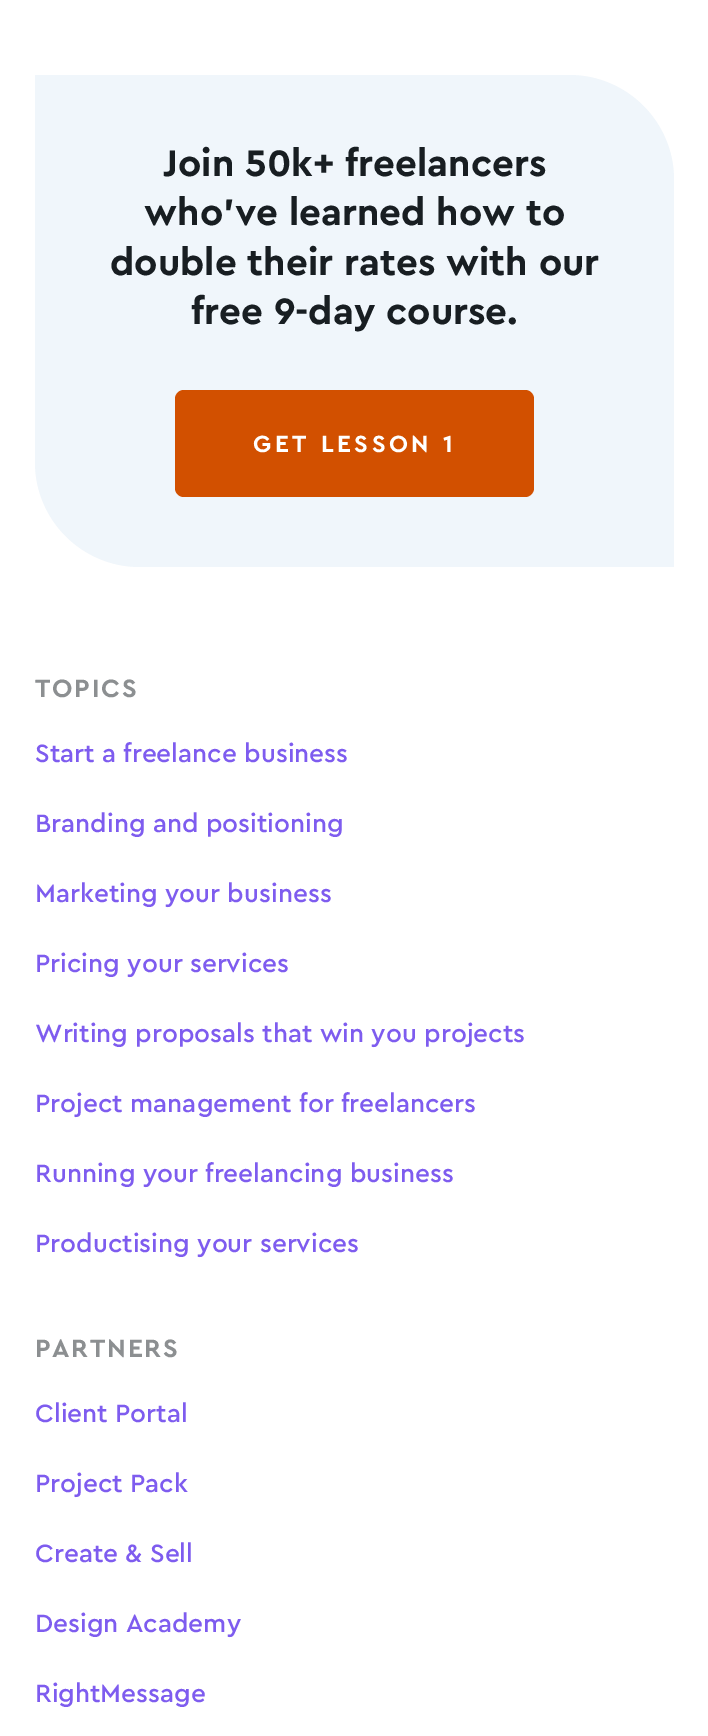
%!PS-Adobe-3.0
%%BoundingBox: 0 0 708 1736
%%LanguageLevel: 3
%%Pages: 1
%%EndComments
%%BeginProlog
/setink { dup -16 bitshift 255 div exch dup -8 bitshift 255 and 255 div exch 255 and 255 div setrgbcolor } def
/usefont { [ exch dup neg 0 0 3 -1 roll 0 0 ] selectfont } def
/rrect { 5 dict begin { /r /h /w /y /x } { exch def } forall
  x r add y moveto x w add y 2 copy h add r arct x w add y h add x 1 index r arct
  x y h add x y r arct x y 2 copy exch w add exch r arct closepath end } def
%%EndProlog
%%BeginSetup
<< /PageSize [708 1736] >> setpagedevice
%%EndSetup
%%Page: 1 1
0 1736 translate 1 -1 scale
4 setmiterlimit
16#FFFFFF setink
0 0 708 1736 rectfill
16#F0F6FB setink
35 75 moveto 569 75 lineto 627 75 674 122 674 180 curveto 674 567 lineto 140 567 lineto 82 567 35 520 35 462 curveto closepath fill
/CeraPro-Bold 38.5 usefont
16#181E22 setink
[
    [(Join 50k+ freelancers) 163 176]
    [(who've learned how to) 144 225]
    [(double their rates with our) 110 275]
    [(free 9-day course.) 191 324]
] { aload pop moveto show } forall
16#D25000 setink
175 390 359 107 9 rrect fill
/CeraPro-Bold 24.5 usefont
16#FFFFFF setink
253 452 moveto 3.5 0 (GET LESSON 1) ashow
/CeraPro-Bold 26.25 usefont
16#8C8F91 setink
35 697 moveto 1.75 0 (TOPICS) ashow
/CeraPro-Medium 26.25 usefont
16#7E5CEF setink
[
    [(Start a freelance business) 35 762]
    [(Branding and positioning) 35 832]
    [(Marketing your business) 35 902]
    [(Pricing your services) 35 972]
    [(Writing proposals that win you projects) 35 1042]
    [(Project management for freelancers) 35 1112]
    [(Running your freelancing business) 35 1182]
    [(Productising your services) 35 1252]
] { aload pop moveto show } forall
/CeraPro-Bold 26.25 usefont
16#8C8F91 setink
35 1357 moveto 1.75 0 (PARTNERS) ashow
/CeraPro-Medium 26.25 usefont
16#7E5CEF setink
[
    [(Client Portal) 35 1422]
    [(Project Pack) 35 1492]
    [(Create & Sell) 35 1562]
    [(Design Academy) 35 1632]
    [(RightMessage) 35 1702]
] { aload pop moveto show } forall
showpage
%%EOF
